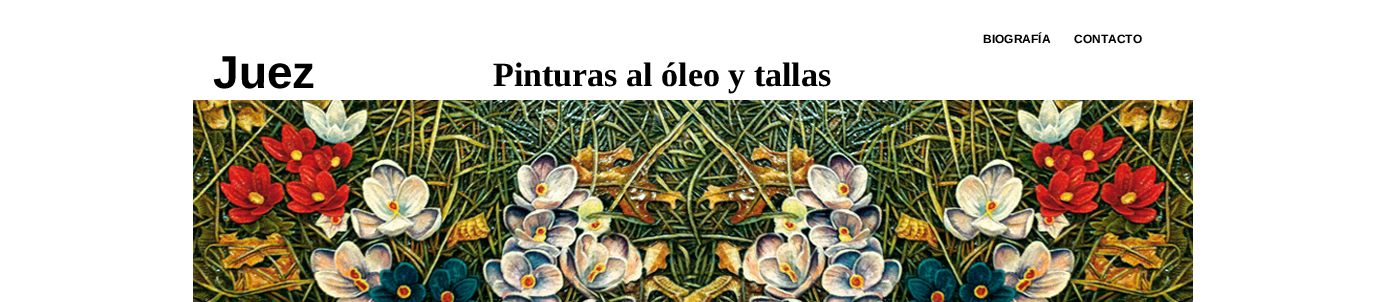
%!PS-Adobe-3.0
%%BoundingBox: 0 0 1386 302
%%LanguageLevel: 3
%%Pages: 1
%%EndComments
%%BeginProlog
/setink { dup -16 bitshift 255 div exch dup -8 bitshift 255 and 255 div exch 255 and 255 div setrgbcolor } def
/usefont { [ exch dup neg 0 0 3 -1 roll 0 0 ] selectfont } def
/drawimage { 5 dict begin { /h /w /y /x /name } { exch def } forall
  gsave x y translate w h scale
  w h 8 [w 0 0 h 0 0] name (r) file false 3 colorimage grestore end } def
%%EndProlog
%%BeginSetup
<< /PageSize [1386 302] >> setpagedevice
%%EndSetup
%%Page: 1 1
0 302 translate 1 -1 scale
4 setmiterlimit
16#FFFFFF setink
0 0 1386 302 rectfill
/LiberationSans-Bold 12 usefont
16#000000 setink
983 43 moveto (BIOGRAFÍA) show
1074 43 moveto (CONTACTO) show
/LiberationSans-Bold 46 usefont
213 88 moveto (Juez) show
/LiberationSerif-Bold 34 usefont
493 86 moveto (Pinturas al óleo y tallas) show
(img1.raw) 193 100 1000 202 drawimage
showpage
%%EOF
